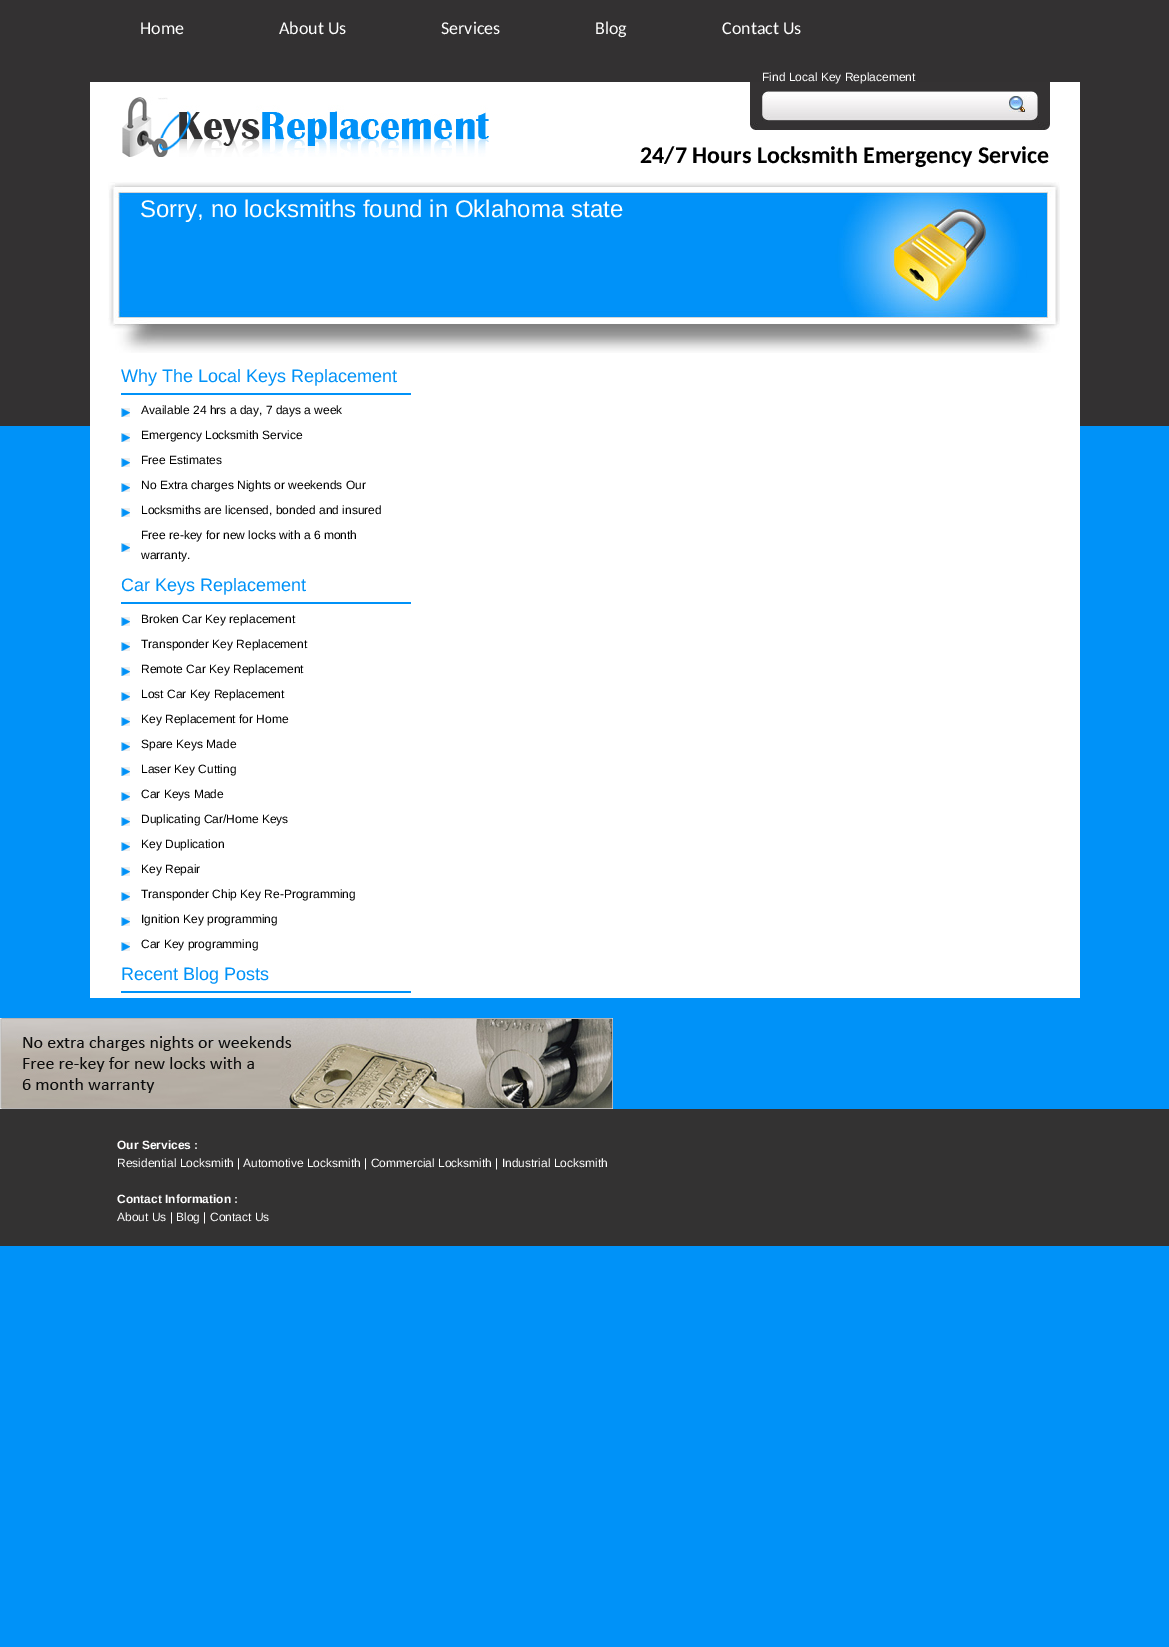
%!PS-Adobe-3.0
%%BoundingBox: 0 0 1169 1647
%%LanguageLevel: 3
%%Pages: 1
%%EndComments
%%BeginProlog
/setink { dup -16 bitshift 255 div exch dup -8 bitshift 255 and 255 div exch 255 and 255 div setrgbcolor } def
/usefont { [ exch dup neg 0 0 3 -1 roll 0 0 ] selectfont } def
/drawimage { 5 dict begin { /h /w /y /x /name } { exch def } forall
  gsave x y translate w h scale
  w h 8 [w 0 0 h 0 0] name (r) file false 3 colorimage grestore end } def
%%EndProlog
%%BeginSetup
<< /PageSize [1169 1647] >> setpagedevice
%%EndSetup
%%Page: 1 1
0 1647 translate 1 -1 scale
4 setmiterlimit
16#0092F8 setink
0 0 1169 1647 rectfill
16#333132 setink
0 0 1169 426 rectfill
/Carlito-Regular 18 usefont
16#FFFFFF setink
[
    [(Home) 140 34]
    [(About Us) 279 34]
    [(Services) 441 34]
    [(Blog) 595 34]
    [(Contact Us) 722 34]
] { aload pop moveto show } forall
90 82 990 916 rectfill
(img1.raw) 122 97 367 60 drawimage
(img2.raw) 750 82 300 48 drawimage
/LiberationSans-Regular 12 usefont
762 81 moveto (Find Local Key Replacement) show
(img3.raw) 762 91 276 30 drawimage
(img4.raw) 1009 96 16 16 drawimage
/Carlito-Bold 24 usefont
16#000000 setink
640 163 moveto (24/7 Hours Locksmith Emergency Service) show
(img5.raw) 108 182 952 171 drawimage
/LiberationSans-Regular 24 usefont
16#FFFFFF setink
140 217 moveto (Sorry, no locksmiths found in Oklahoma state) show
16#0092F8 setink
121 393 290 2 rectfill
/LiberationSans-Regular 18 usefont
121 382 moveto (Why The Local Keys Replacement) show
(img6.raw) 121 408 9 9 drawimage
/LiberationSans-Regular 12 usefont
16#000000 setink
141 414 moveto (Available 24 hrs a day, 7 days a week) show
(img6.raw) 121 433 9 9 drawimage
141 439 moveto (Emergency Locksmith Service) show
(img6.raw) 121 458 9 9 drawimage
141 464 moveto (Free Estimates) show
(img6.raw) 121 483 9 9 drawimage
141 489 moveto (No Extra charges Nights or weekends Our) show
(img6.raw) 121 508 9 9 drawimage
141 514 moveto (Locksmiths are licensed, bonded and insured) show
(img6.raw) 121 543 9 9 drawimage
141 539 moveto (Free re-key for new locks with a 6 month) show
141 559 moveto (warranty.) show
16#0092F8 setink
121 602 290 2 rectfill
/LiberationSans-Regular 18 usefont
121 591 moveto (Car Keys Replacement) show
(img6.raw) 121 617 9 9 drawimage
/LiberationSans-Regular 12 usefont
16#000000 setink
141 623 moveto (Broken Car Key replacement) show
(img6.raw) 121 642 9 9 drawimage
141 648 moveto (Transponder Key Replacement) show
(img6.raw) 121 667 9 9 drawimage
141 673 moveto (Remote Car Key Replacement) show
(img6.raw) 121 692 9 9 drawimage
141 698 moveto (Lost Car Key Replacement) show
(img6.raw) 121 717 9 9 drawimage
141 723 moveto (Key Replacement for Home) show
(img6.raw) 121 742 9 9 drawimage
141 748 moveto (Spare Keys Made) show
(img6.raw) 121 767 9 9 drawimage
141 773 moveto (Laser Key Cutting) show
(img6.raw) 121 792 9 9 drawimage
141 798 moveto (Car Keys Made) show
(img6.raw) 121 817 9 9 drawimage
141 823 moveto (Duplicating Car/Home Keys) show
(img6.raw) 121 842 9 9 drawimage
141 848 moveto (Key Duplication) show
(img6.raw) 121 867 9 9 drawimage
141 873 moveto (Key Repair) show
(img6.raw) 121 892 9 9 drawimage
141 898 moveto (Transponder Chip Key Re-Programming) show
(img6.raw) 121 917 9 9 drawimage
141 923 moveto (Ignition Key programming) show
(img6.raw) 121 942 9 9 drawimage
141 948 moveto (Car Key programming) show
16#0092F8 setink
121 991 290 2 rectfill
/LiberationSans-Regular 18 usefont
121 980 moveto (Recent Blog Posts) show
(img7.raw) 0 1018 613 91 drawimage
16#333232 setink
0 1109 1169 137 rectfill
/LiberationSans-Bold 12 usefont
16#FFFFFF setink
117 1149 moveto (Our Services :) show
/LiberationSans-Regular 12 usefont
117 1167 moveto (Residential Locksmith | Automotive Locksmith | Commercial Locksmith | Industrial Locksmith) show
/LiberationSans-Bold 12 usefont
117 1203 moveto (Contact Information :) show
/LiberationSans-Regular 12 usefont
117 1221 moveto (About Us | Blog | Contact Us) show
showpage
%%EOF
